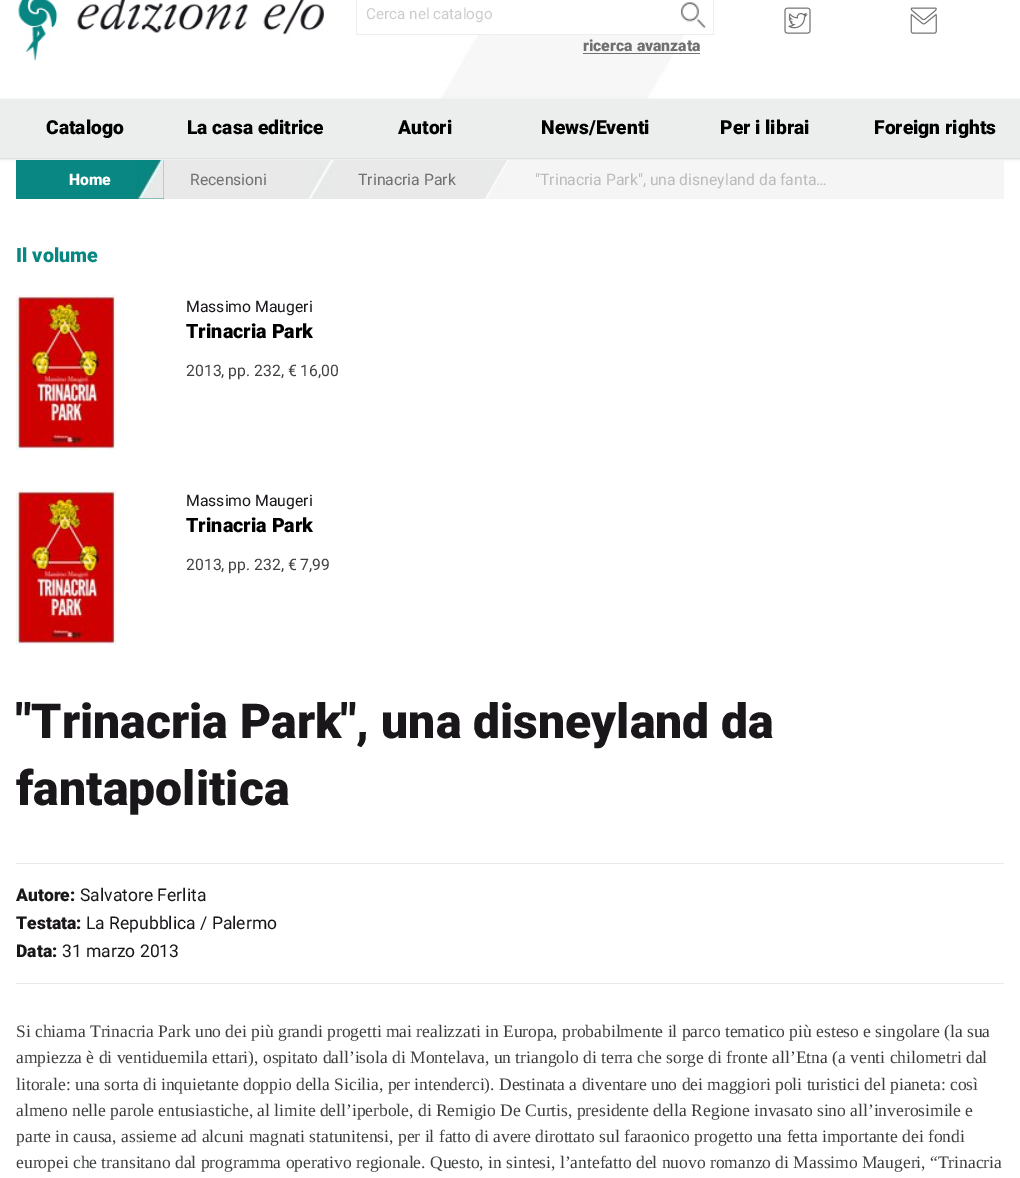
%!PS-Adobe-3.0
%%BoundingBox: 0 0 1020 1178
%%LanguageLevel: 3
%%Pages: 1
%%EndComments
%%BeginProlog
/setink { dup -16 bitshift 255 div exch dup -8 bitshift 255 and 255 div exch 255 and 255 div setrgbcolor } def
/usefont { [ exch dup neg 0 0 3 -1 roll 0 0 ] selectfont } def
/setalpha { dup .setfillconstantalpha .setstrokeconstantalpha } def
/rrect { 5 dict begin { /r /h /w /y /x } { exch def } forall
  x r add y moveto x w add y 2 copy h add r arct x w add y h add x 1 index r arct
  x y h add x y r arct x y 2 copy exch w add exch r arct closepath end } def
/softshadow { 12 dict begin { /a /b /q /h /w /y /x } { exch def } forall gsave /was 0 def
  9 -2 -9 { dup b mul 4 div /e exch def 1 sub .425 mul 2.718 exch exp 1 add a .99 .min exch div /now exch def
    1 1 now sub 1 was sub div sub setalpha /was now def
    w h .min e 2 mul add 0 gt { x e sub y e sub w e 2 mul add h e 2 mul add
      q e add b .6 mul add w h .min 2 div e add .min 0 .max rrect fill } if } for grestore end } def
/drawimage { 5 dict begin { /h /w /y /x /name } { exch def } forall
  gsave x y translate w h scale
  w h 8 [w 0 0 h 0 0] name (r) file false 3 colorimage grestore end } def
%%EndProlog
%%BeginSetup
<< /PageSize [1020 1178] /PageUsesTransparency true >> setpagedevice
%%EndSetup
%%Page: 1 1
0 .pushpdf14devicefilter
0 1178 translate 1 -1 scale
4 setmiterlimit
16#FFFFFF setink
0 0 1020 1178 rectfill
(img1.raw) 441 35 263 64 drawimage
(img2.raw) 18 0 306 61 drawimage
16#ECEDED setink
356 34 287 1 rectfill
356 0 1 35 rectfill
/Roboto-Regular 15.25 usefont
16#CCCCCC setink
366 19 moveto (Cerca nel catalogo) show
(img3.raw) 681 2 25 26 drawimage
16#ECEDED setink
713 0 1 35 rectfill
643 34 71 1 rectfill
/Roboto-Black 15.75 usefont
16#6F7072 setink
583 51 moveto (ricerca avanzata) show
583 53 117 1 rectfill
(img4.raw) 784 7 27 27 drawimage
(img5.raw) 910 7 27 27 drawimage
16#000000 setink
0 100 1020 59 0 1 0.12 softshadow
0 100 1020 59 0 2 0.06 softshadow
16#ECEDED setink
0 99 1020 59 rectfill
/Roboto-Black 19.25 usefont
16#000000 setink
[
    [(Catalogo) 46 134]
    [(La casa editrice) 187 134]
    [(Autori) 398 134]
    [(News/Eventi) 541 134]
    [(Per i librai) 720 134]
    [(Foreign rights) 874 134]
] { aload pop moveto show } forall
16#F5F5F5 setink
483 160 521 39 rectfill
16#098782 setink
16 160 148 39 rectfill
(img6.raw) 136 160 28 39 drawimage
/Roboto-Black 15.75 usefont
16#FFFFFF setink
69 185 moveto (Home) show
16#E9E9E9 setink
164 160 319 39 rectfill
/Roboto-Regular 15.75 usefont
16#6F7072 setink
190 185 moveto (Recensioni) show
(img7.raw) 308 160 26 39 drawimage
358 185 moveto (Trinacria Park) show
(img8.raw) 483 160 26 39 drawimage
16#BBBBBB setink
535 185 moveto ("Trinacria Park", una disneyland da fanta…) show
/Roboto-Black 19.75 usefont
16#098782 setink
16 262 moveto (Il volume) show
(img9.raw) 16 295 101 155 drawimage
/Roboto-Regular 15.75 usefont
16#1A171B setink
186 312 moveto (Massimo Maugeri) show
/Roboto-Black 19.75 usefont
16#000000 setink
186 338 moveto (Trinacria Park) show
/Roboto-Regular 15.75 usefont
16#3E3F40 setink
186 376 moveto (2013, pp. 232, € 16,00) show
(img10.raw) 16 490 101 155 drawimage
16#1A171B setink
186 506 moveto (Massimo Maugeri) show
/Roboto-Black 19.75 usefont
16#000000 setink
186 532 moveto (Trinacria Park) show
/Roboto-Regular 15.75 usefont
16#3E3F40 setink
186 570 moveto (2013, pp. 232, € 7,99) show
/Roboto-Black 48.1 usefont
16#1A171B setink
16 738 moveto ("Trinacria Park", una disneyland da) show
16 805 moveto (fantapolitica) show
16#E9E9E9 setink
16 863 988 1 rectfill
16 983 988 1 rectfill
/Roboto-Black 17.5 usefont
16#1A171B setink
16 901 moveto (Autore:) show
/Roboto-Regular 17.5 usefont
80 901 moveto (Salvatore Ferlita) show
/Roboto-Black 17.5 usefont
16 929 moveto (Testata:) show
/Roboto-Regular 17.5 usefont
86 929 moveto (La Repubblica / Palermo) show
/Roboto-Black 17.5 usefont
16 957 moveto (Data:) show
/Roboto-Regular 17.5 usefont
62 957 moveto (31 marzo 2013) show
/LiberationSerif-Regular 17.5 usefont
16#3E3F40 setink
[
    [(Si chiama Trinacria Park uno dei più grandi progetti mai realizzati in Europa, probabilmente il parco tematico più esteso e singolare \(la sua) 16 1037]
    [(ampiezza è di ventiduemila ettari\), ospitato dall’isola di Montelava, un triangolo di terra che sorge di fronte all’Etna \(a venti chilometri dal) 16 1063]
    [(litorale: una sorta di inquietante doppio della Sicilia, per intenderci\). Destinata a diventare uno dei maggiori poli turistici del pianeta: così) 16 1090]
    [(almeno nelle parole entusiastiche, al limite dell’iperbole, di Remigio De Curtis, presidente della Regione invasato sino all’inverosimile e) 16 1116]
    [(parte in causa, assieme ad alcuni magnati statunitensi, per il fatto di avere dirottato sul faraonico progetto una fetta importante dei fondi) 16 1142]
    [(europei che transitano dal programma operativo regionale. Questo, in sintesi, l’antefatto del nuovo romanzo di Massimo Maugeri, “Trinacria) 16 1168]
] { aload pop moveto show } forall
.poppdf14devicefilter showpage
%%EOF
